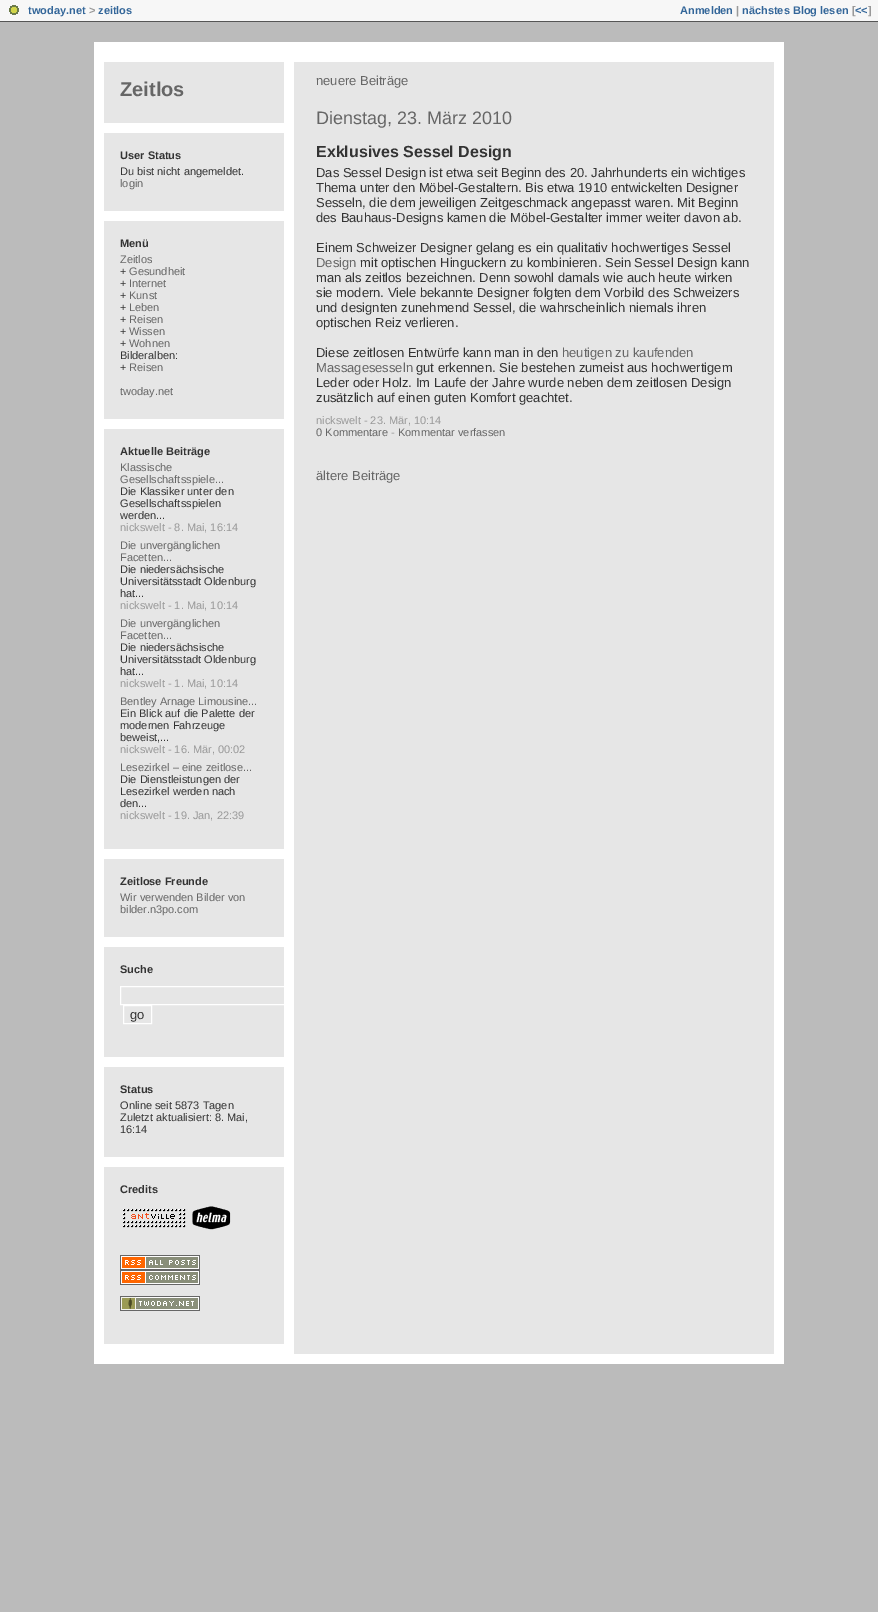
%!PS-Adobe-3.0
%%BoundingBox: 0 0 878 1612
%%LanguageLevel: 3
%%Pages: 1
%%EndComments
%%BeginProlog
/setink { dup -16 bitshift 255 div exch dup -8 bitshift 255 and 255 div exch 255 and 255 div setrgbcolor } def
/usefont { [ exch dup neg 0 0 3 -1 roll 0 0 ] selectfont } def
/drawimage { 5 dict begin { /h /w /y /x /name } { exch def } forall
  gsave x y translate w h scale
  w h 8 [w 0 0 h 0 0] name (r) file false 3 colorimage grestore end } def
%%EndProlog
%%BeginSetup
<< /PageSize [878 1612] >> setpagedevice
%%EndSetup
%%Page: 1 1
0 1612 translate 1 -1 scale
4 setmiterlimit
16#BBBBBB setink
0 0 878 1612 rectfill
16#F7F7F7 setink
0 0 878 21 rectfill
16#555555 setink
0 21 878 1 rectfill
(img1.raw) 9 5 10 10 drawimage
/LiberationSans-Bold 11 usefont
16#336699 setink
28 14 moveto (twoday.net) show
16#999999 setink
89 14 moveto (>) show
16#336699 setink
98 14 moveto (zeitlos) show
680 14 moveto (Anmelden) show
16#999999 setink
736 14 moveto (|) show
16#336699 setink
742 14 moveto (nächstes Blog lesen) show
16#999999 setink
852 14 moveto ([) show
16#336699 setink
855 14 moveto (<<) show
16#999999 setink
868 14 moveto (]) show
[
    [94 42 690 1322 16#FFFFFF]
    [104 62 670 1292 16#E6E6E6]
    [284 62 10 1292 16#FFFFFF]
    [104 123 180 10 16#FFFFFF]
] { aload pop setink rectfill } forall
/LiberationSans-Bold 20 usefont
16#666666 setink
120 96 moveto (Zeitlos) show
16#FFFFFF setink
104 211 180 10 rectfill
/LiberationSans-Bold 11 usefont
16#333333 setink
120 159 moveto (User Status) show
/LiberationSans-Regular 11 usefont
120 175 moveto (Du bist nicht angemeldet.) show
16#666666 setink
120 187 moveto (login) show
16#FFFFFF setink
104 419 180 10 rectfill
/LiberationSans-Bold 11 usefont
16#333333 setink
120 247 moveto (Menü) show
/LiberationSans-Regular 11 usefont
16#666666 setink
120 263 moveto (Zeitlos) show
16#333333 setink
120 275 moveto (+) show
16#666666 setink
129 275 moveto (Gesundheit) show
16#333333 setink
120 287 moveto (+) show
16#666666 setink
129 287 moveto (Internet) show
16#333333 setink
120 299 moveto (+) show
16#666666 setink
129 299 moveto (Kunst) show
16#333333 setink
120 311 moveto (+) show
16#666666 setink
129 311 moveto (Leben) show
16#333333 setink
120 323 moveto (+) show
16#666666 setink
129 323 moveto (Reisen) show
16#333333 setink
120 335 moveto (+) show
16#666666 setink
129 335 moveto (Wissen) show
16#333333 setink
120 347 moveto (+) show
16#666666 setink
129 347 moveto (Wohnen) show
16#333333 setink
120 359 moveto (Bilderalben:) show
120 371 moveto (+) show
16#666666 setink
129 371 moveto (Reisen) show
120 395 moveto (twoday.net) show
16#FFFFFF setink
104 849 180 10 rectfill
/LiberationSans-Bold 11 usefont
16#333333 setink
120 455 moveto (Aktuelle Beiträge) show
/LiberationSans-Regular 11 usefont
16#666666 setink
120 471 moveto (Klassische) show
120 483 moveto (Gesellschaftsspiele...) show
16#333333 setink
[
    [(Die Klassiker unter den) 120 495]
    [(Gesellschaftsspielen) 120 507]
    [(werden...) 120 519]
] { aload pop moveto show } forall
16#999999 setink
120 531 moveto (nickswelt - 8. Mai, 16:14) show
16#666666 setink
120 549 moveto (Die unvergänglichen) show
120 561 moveto (Facetten...) show
16#333333 setink
[
    [(Die niedersächsische) 120 573]
    [(Universitätsstadt Oldenburg) 120 585]
    [(hat...) 120 597]
] { aload pop moveto show } forall
16#999999 setink
120 609 moveto (nickswelt - 1. Mai, 10:14) show
16#666666 setink
120 627 moveto (Die unvergänglichen) show
120 639 moveto (Facetten...) show
16#333333 setink
[
    [(Die niedersächsische) 120 651]
    [(Universitätsstadt Oldenburg) 120 663]
    [(hat...) 120 675]
] { aload pop moveto show } forall
16#999999 setink
120 687 moveto (nickswelt - 1. Mai, 10:14) show
16#666666 setink
120 705 moveto (Bentley Arnage Limousine...) show
16#333333 setink
[
    [(Ein Blick auf die Palette der) 120 717]
    [(modernen Fahrzeuge) 120 729]
    [(beweist,...) 120 741]
] { aload pop moveto show } forall
16#999999 setink
120 753 moveto (nickswelt - 16. Mär, 00:02) show
16#666666 setink
120 771 moveto (Lesezirkel – eine zeitlose...) show
16#333333 setink
[
    [(Die Dienstleistungen der) 120 783]
    [(Lesezirkel werden nach) 120 795]
    [(den...) 120 807]
] { aload pop moveto show } forall
16#999999 setink
120 819 moveto (nickswelt - 19. Jan, 22:39) show
16#FFFFFF setink
104 937 180 10 rectfill
/LiberationSans-Bold 11 usefont
16#333333 setink
120 885 moveto (Zeitlose Freunde) show
/LiberationSans-Regular 11 usefont
16#666666 setink
120 901 moveto (Wir verwenden Bilder von) show
120 913 moveto (bilder.n3po.com) show
16#FFFFFF setink
104 1057 180 10 rectfill
/LiberationSans-Bold 11 usefont
16#333333 setink
120 973 moveto (Suche) show
gsave
104 62 180 1292 rectclip
16#FFFFFF setink
120.5 986.5 181 18 rectstroke
grestore
16#FFFFFF setink
123.5 1005.5 28 18 rectstroke
/LiberationSans-Regular 13 usefont
16#333333 setink
130 1019 moveto (go) show
16#FFFFFF setink
104 1157 180 10 rectfill
/LiberationSans-Bold 11 usefont
16#333333 setink
120 1093 moveto (Status) show
/LiberationSans-Regular 11 usefont
[
    [(Online seit 5873 Tagen) 120 1109]
    [(Zuletzt aktualisiert: 8. Mai,) 120 1121]
    [(16:14) 120 1133]
] { aload pop moveto show } forall
16#FFFFFF setink
104 1344 180 10 rectfill
/LiberationSans-Bold 11 usefont
16#333333 setink
120 1193 moveto (Credits) show
(img2.raw) 123 1209 63 19 drawimage
(img3.raw) 192 1206 39 24 drawimage
(img4.raw) 120 1255 80 15 drawimage
(img5.raw) 120 1270 80 15 drawimage
(img6.raw) 120 1296 80 15 drawimage
/LiberationSans-Regular 13 usefont
16#666666 setink
316 85 moveto (neuere Beiträge) show
/LiberationSans-Regular 18 usefont
316 124 moveto (Dienstag, 23. März 2010) show
/LiberationSans-Bold 16 usefont
16#333333 setink
316 157 moveto (Exklusives Sessel Design) show
/LiberationSans-Regular 13 usefont
[
    [(Das Sessel Design ist etwa seit Beginn des 20. Jahrhunderts ein wichtiges) 316 177]
    [(Thema unter den Möbel-Gestaltern. Bis etwa 1910 entwickelten Designer) 316 192]
    [(Sesseln, die dem jeweiligen Zeitgeschmack angepasst waren. Mit Beginn) 316 207]
    [(des Bauhaus-Designs kamen die Möbel-Gestalter immer weiter davon ab.) 316 222]
    [(Einem Schweizer Designer gelang es ein qualitativ hochwertiges Sessel) 316 252]
] { aload pop moveto show } forall
16#666666 setink
316 267 moveto (Design) show
16#333333 setink
[
    [(mit optischen Hinguckern zu kombinieren. Sein Sessel Design kann) 360 267]
    [(man als zeitlos bezeichnen. Denn sowohl damals wie auch heute wirken) 316 282]
    [(sie modern. Viele bekannte Designer folgten dem Vorbild des Schweizers) 316 297]
    [(und designten zunehmend Sessel, die wahrscheinlich niemals ihren) 316 312]
    [(optischen Reiz verlieren.) 316 327]
    [(Diese zeitlosen Entwürfe kann man in den) 316 357]
] { aload pop moveto show } forall
16#666666 setink
562 357 moveto (heutigen zu kaufenden) show
316 372 moveto (Massagesesseln) show
16#333333 setink
[
    [(gut erkennen. Sie bestehen zumeist aus hochwertigem) 416 372]
    [(Leder oder Holz. Im Laufe der Jahre wurde neben dem zeitlosen Design) 316 387]
    [(zusätzlich auf einen guten Komfort geachtet.) 316 402]
] { aload pop moveto show } forall
/LiberationSans-Regular 11 usefont
16#999999 setink
316 424 moveto (nickswelt - 23. Mär, 10:14) show
16#666666 setink
316 436 moveto (0 Kommentare) show
16#999999 setink
391 436 moveto (-) show
16#666666 setink
398 436 moveto (Kommentar verfassen) show
/LiberationSans-Regular 13 usefont
316 480 moveto (ältere Beiträge) show
showpage
%%EOF
